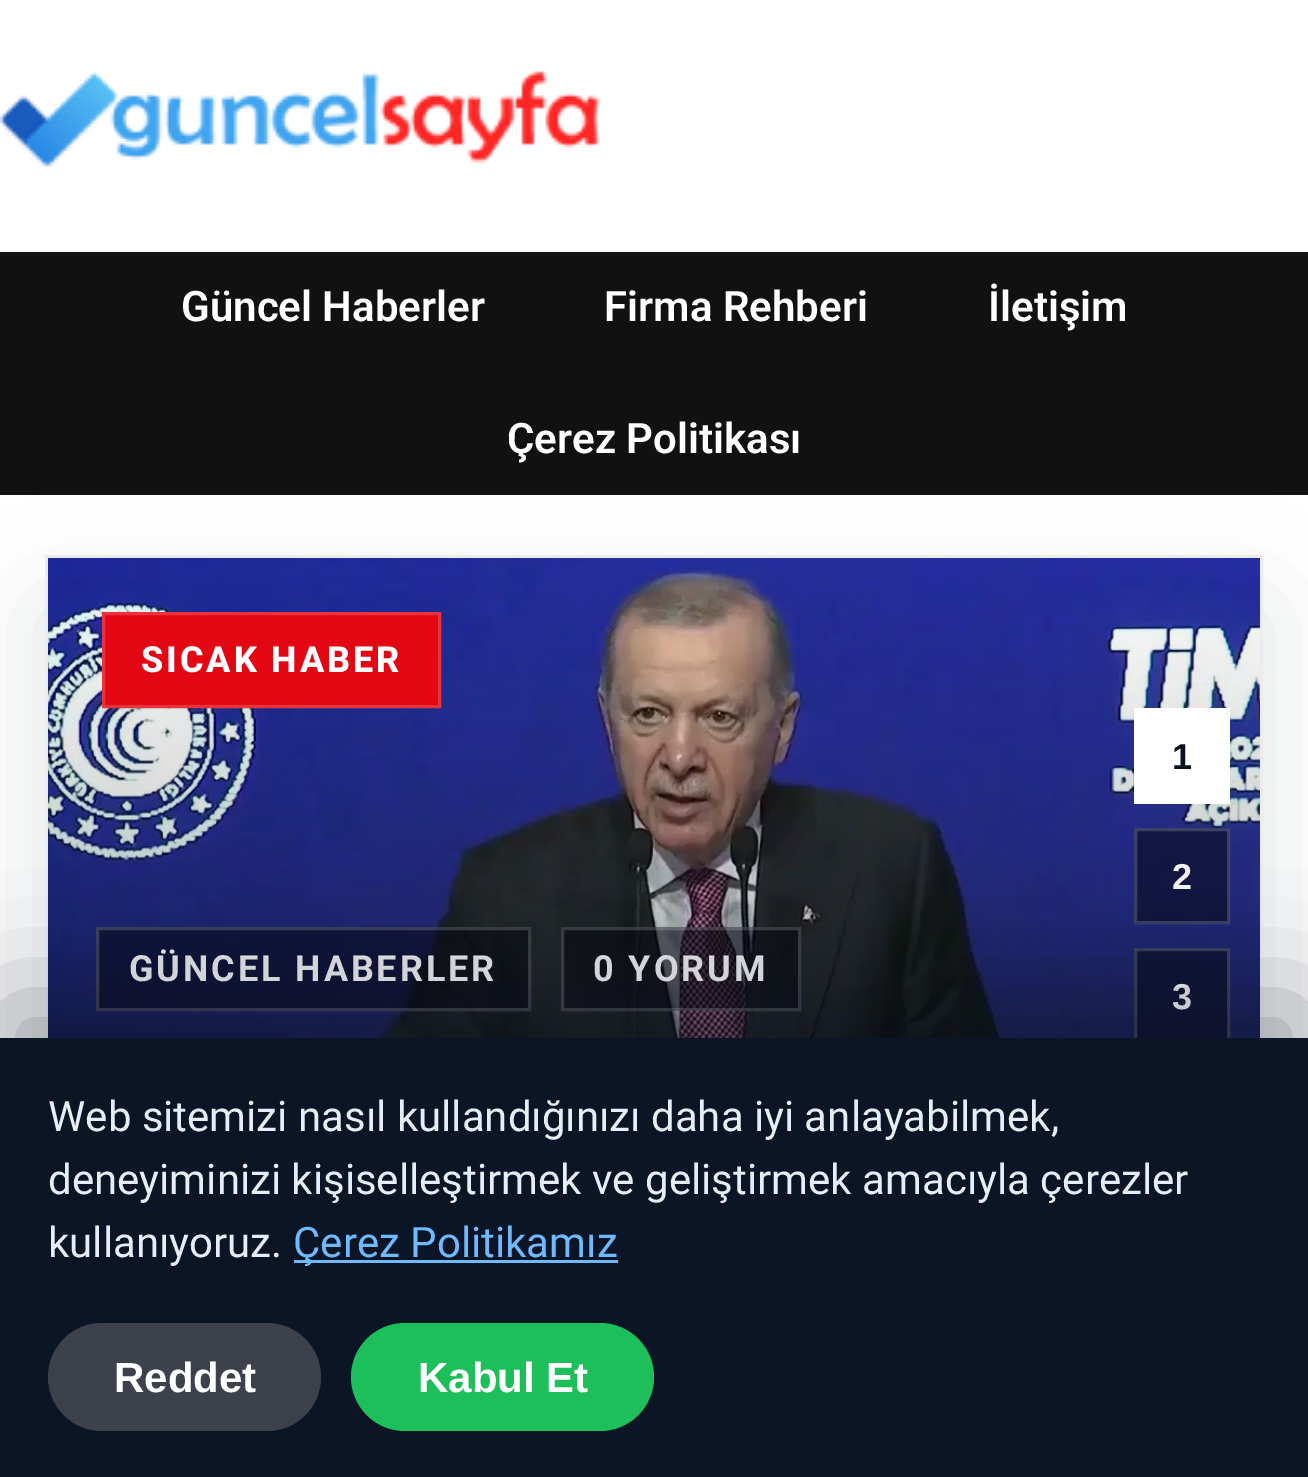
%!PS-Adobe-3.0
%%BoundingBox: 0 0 1308 1477
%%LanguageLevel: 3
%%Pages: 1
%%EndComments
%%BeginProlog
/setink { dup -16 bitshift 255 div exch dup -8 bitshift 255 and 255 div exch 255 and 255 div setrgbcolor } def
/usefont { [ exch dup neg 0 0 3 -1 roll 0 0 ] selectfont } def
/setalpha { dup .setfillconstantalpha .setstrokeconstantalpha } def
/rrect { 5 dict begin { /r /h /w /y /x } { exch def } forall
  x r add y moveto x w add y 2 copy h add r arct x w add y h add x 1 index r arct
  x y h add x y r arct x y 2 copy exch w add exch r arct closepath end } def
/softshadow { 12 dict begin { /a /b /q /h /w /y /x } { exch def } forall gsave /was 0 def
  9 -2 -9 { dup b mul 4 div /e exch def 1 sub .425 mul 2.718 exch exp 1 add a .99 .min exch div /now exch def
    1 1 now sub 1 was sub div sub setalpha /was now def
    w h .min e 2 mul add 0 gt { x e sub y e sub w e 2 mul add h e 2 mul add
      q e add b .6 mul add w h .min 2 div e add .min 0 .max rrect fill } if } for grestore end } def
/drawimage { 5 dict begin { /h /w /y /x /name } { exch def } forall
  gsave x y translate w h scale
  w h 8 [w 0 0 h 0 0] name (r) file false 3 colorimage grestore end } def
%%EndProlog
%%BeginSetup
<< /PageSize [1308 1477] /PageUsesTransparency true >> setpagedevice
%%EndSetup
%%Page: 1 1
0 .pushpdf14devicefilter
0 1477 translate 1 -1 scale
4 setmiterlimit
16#FFFFFF setink
0 0 1308 1477 rectfill
(img1.raw) 0 71 600 98 drawimage
16#111111 setink
0 252 1308 243 rectfill
/Roboto-SemiBold 42 usefont
16#FFFFFF setink
[
    [(Güncel Haberler) 181 321]
    [(Firma Rehberi) 604 321]
    [(İletişim) 988 321]
    [(Çerez Politikası) 507 453]
] { aload pop moveto show } forall
16#101828 setink
45 609 1218 765 0 52.5 0.12 softshadow
16#ECECEE setink
3 setlinewidth
46.5 556.5 1215 762 rectstroke
(img2.raw) 48 558 1212 480 drawimage
16#E30613 setink
103.5 613.5 moveto 439.5 613.5 lineto 439.5 706.5 lineto 103.5 706.5 lineto closepath gsave fill grestore
16#E8333D setink
stroke
/Roboto-ExtraBold 36 usefont
16#FFFFFF setink
141 672 moveto 2.9 0 (SICAK HABER) ashow
0.55 setalpha
16#050710 setink
96 927 435 84 rectfill
0.18 setalpha
16#FFFFFF setink
97.5 928.5 432 81 rectstroke
/Roboto-Bold 36 usefont
1 setalpha
16#ECECEE setink
129 981 moveto 2.9 0 (GÜNCEL HABERLER) ashow
0.55 setalpha
16#050710 setink
561 927 240 84 rectfill
0.18 setalpha
16#FFFFFF setink
562.5 928.5 237 81 rectstroke
1 setalpha
16#ECECEE setink
593 981 moveto 2.9 0 (0 YORUM) ashow
16#FFFFFF setink
1134 708 96 96 rectfill
/LiberationSans-Bold 36 usefont
16#0B1120 setink
1172 769 moveto (1) show
0.55 setalpha
16#050710 setink
1134 828 96 96 rectfill
0.18 setalpha
16#FFFFFF setink
1135.5 829.5 93 93 rectstroke
1 setalpha
16#F3F3F5 setink
1172 889 moveto (2) show
0.55 setalpha
16#050710 setink
1134 948 96 90 rectfill
0.18 setalpha
16#FFFFFF setink
1135.5 949.5 93 93 rectstroke
1 setalpha
16#F3F3F5 setink
1172 1009 moveto (3) show
16#0C1522 setink
0 1002 1308 441 0 60 0.35 softshadow
16#0B1526 setink
0 1038 1308 439 rectfill
/Roboto-Regular 42 usefont
16#E7ECF6 setink
[
    [(Web sitemizi nasıl kullandığınızı daha iyi anlayabilmek,) 48 1131]
    [(deneyiminizi kişiselleştirmek ve geliştirmek amacıyla çerezler) 48 1194]
    [(kullanıyoruz.) 48 1257]
] { aload pop moveto show } forall
16#6FB9FF setink
294 1260 324 3 rectfill
293 1257 moveto (Çerez Politikamız) show
16#3C414B setink
48 1323 273 108 54 rrect fill
/LiberationSans-Bold 42 usefont
16#FFFFFF setink
114 1392 moveto (Reddet) show
16#1DBF5B setink
351 1323 303 108 54 rrect fill
16#FFFFFF setink
418 1392 moveto (Kabul Et) show
.poppdf14devicefilter showpage
%%EOF
